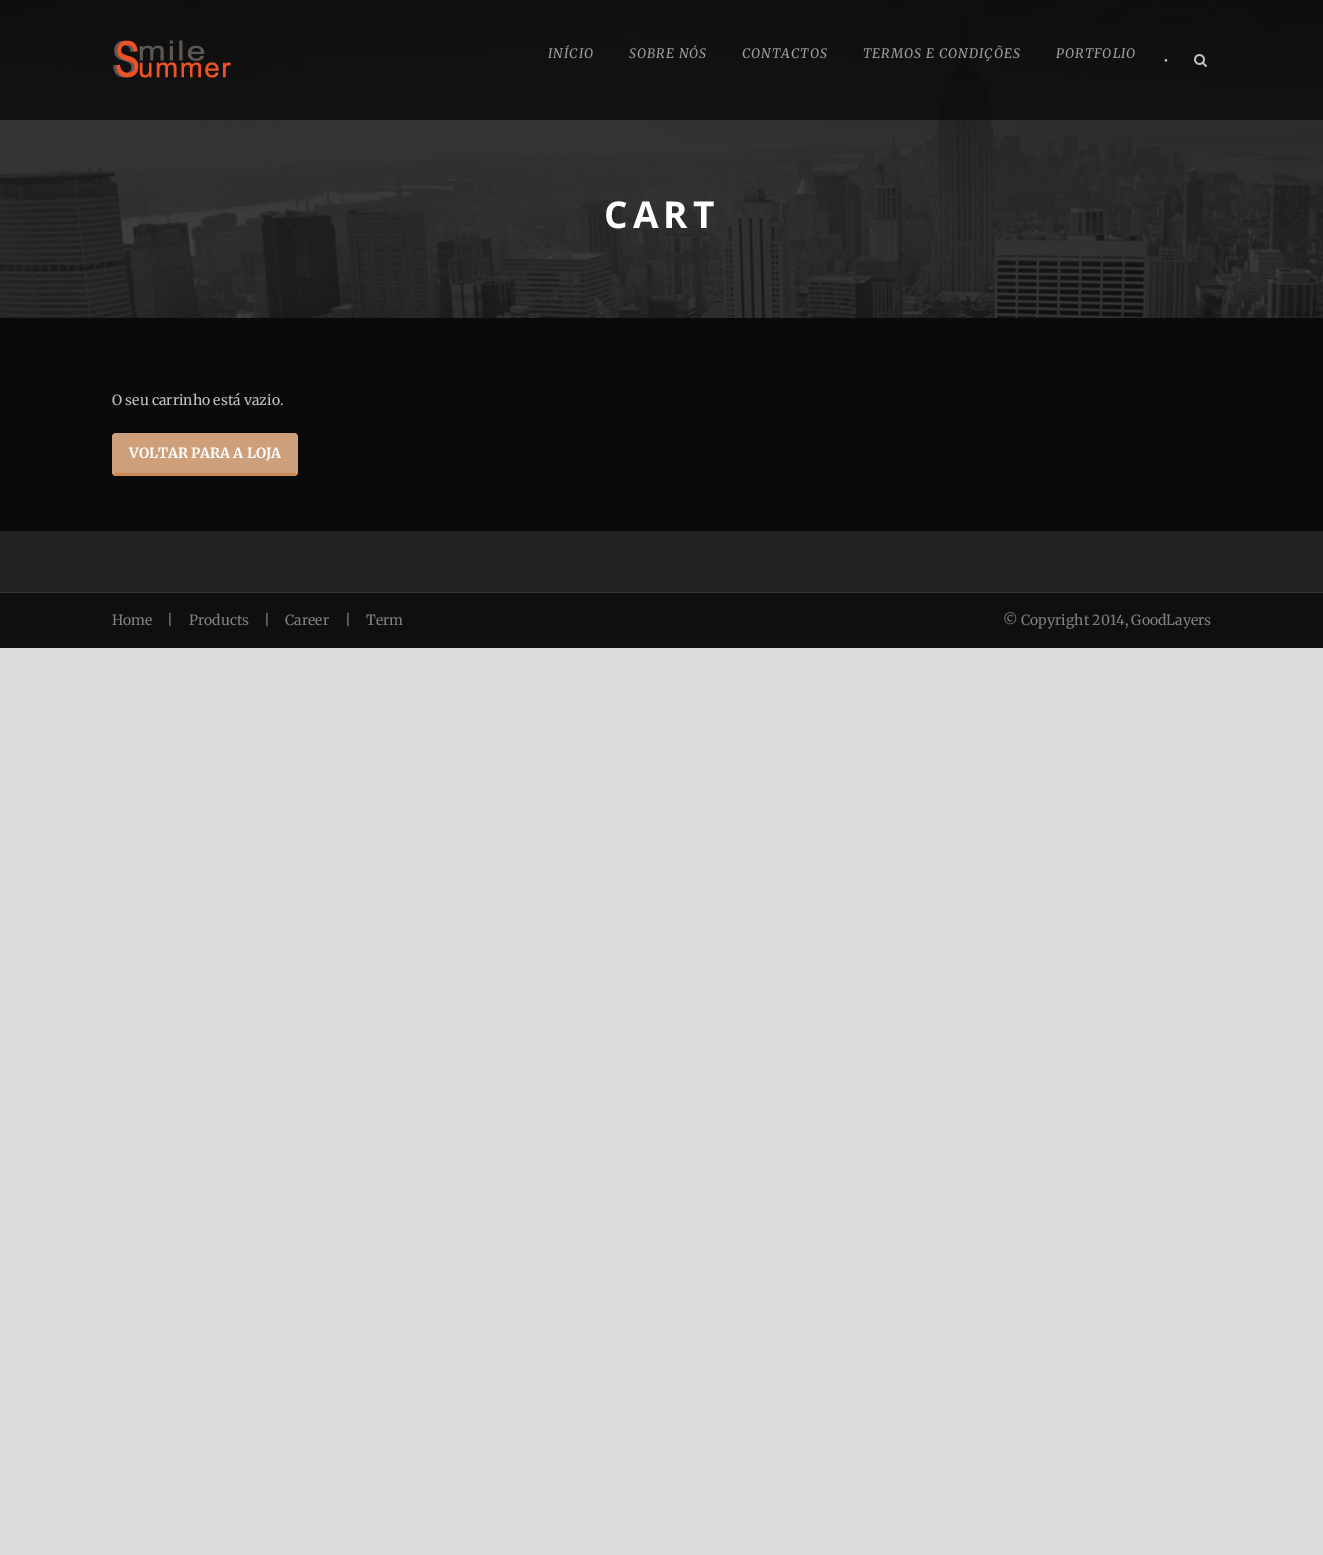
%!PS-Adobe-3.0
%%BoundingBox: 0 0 1323 1555
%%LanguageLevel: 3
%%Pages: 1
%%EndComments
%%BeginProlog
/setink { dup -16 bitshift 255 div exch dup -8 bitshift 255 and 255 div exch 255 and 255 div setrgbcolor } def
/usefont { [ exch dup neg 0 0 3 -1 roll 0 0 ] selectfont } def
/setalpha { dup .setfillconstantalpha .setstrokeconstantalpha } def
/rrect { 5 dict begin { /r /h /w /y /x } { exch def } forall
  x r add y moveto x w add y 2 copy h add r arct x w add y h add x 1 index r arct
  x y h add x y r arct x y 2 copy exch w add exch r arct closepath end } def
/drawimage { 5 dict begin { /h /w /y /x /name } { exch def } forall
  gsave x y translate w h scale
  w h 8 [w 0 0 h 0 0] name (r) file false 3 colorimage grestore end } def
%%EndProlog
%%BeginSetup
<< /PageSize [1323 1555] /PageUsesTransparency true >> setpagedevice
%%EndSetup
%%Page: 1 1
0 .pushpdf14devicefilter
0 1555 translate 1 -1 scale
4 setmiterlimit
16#DDDDDD setink
0 0 1323 1555 rectfill
16#0A0A0A setink
0 318 1323 213 rectfill
(img3.raw) 0 0 1323 318 drawimage
0.8 setalpha
0 0 1323 120 rectfill
1 setalpha
(img1.raw) 113 40 118 38 drawimage
/Merriweather-Italic 13 usefont
16#A0A0A0 setink
548 58 moveto 1 0 (INÍCIO) ashow
629 58 moveto 1 0 (SOBRE NÓS) ashow
742 58 moveto 1 0 (CONTACTOS) ashow
863 58 moveto 1 0 (TERMOS E CONDIÇÕES) ashow
1056 58 moveto 1 0 (PORTFOLIO) ashow
/Merriweather-Regular 14 usefont
16#C1C1C1 setink
1163 65 moveto (•) show
(img2.raw) 1194 54 13 13 drawimage
/OpenSans-Bold 37 usefont
16#FFFFFF setink
604 228 moveto 5 0 (CART) ashow
/Merriweather-Regular 14 usefont
16#C1C1C1 setink
112 405 moveto (O seu carrinho está vazio.) show
16#CD9F7A setink
112 433 186 43 4 rrect fill
16#CC8953 setink
114 473 182 3 rectfill
/Merriweather-Bold 14 usefont
16#FFFFFF setink
129 458 moveto (VOLTAR PARA A LOJA) show
[
    [0 531 1323 61 16#212121]
    [0 593 1323 55 16#0F0F0F]
    [0 592 1323 1 16#333333]
] { aload pop setink rectfill } forall
/Merriweather-Regular 14 usefont
16#7F7F7F setink
[
    [(Home) 112 625]
    [(|) 167 625]
    [(Products) 189 625]
    [(|) 264 625]
    [(Career) 285 625]
    [(|) 345 625]
    [(Term) 366 625]
    [(© Copyright 2014, GoodLayers) 1003 625]
] { aload pop moveto show } forall
.poppdf14devicefilter showpage
%%EOF
